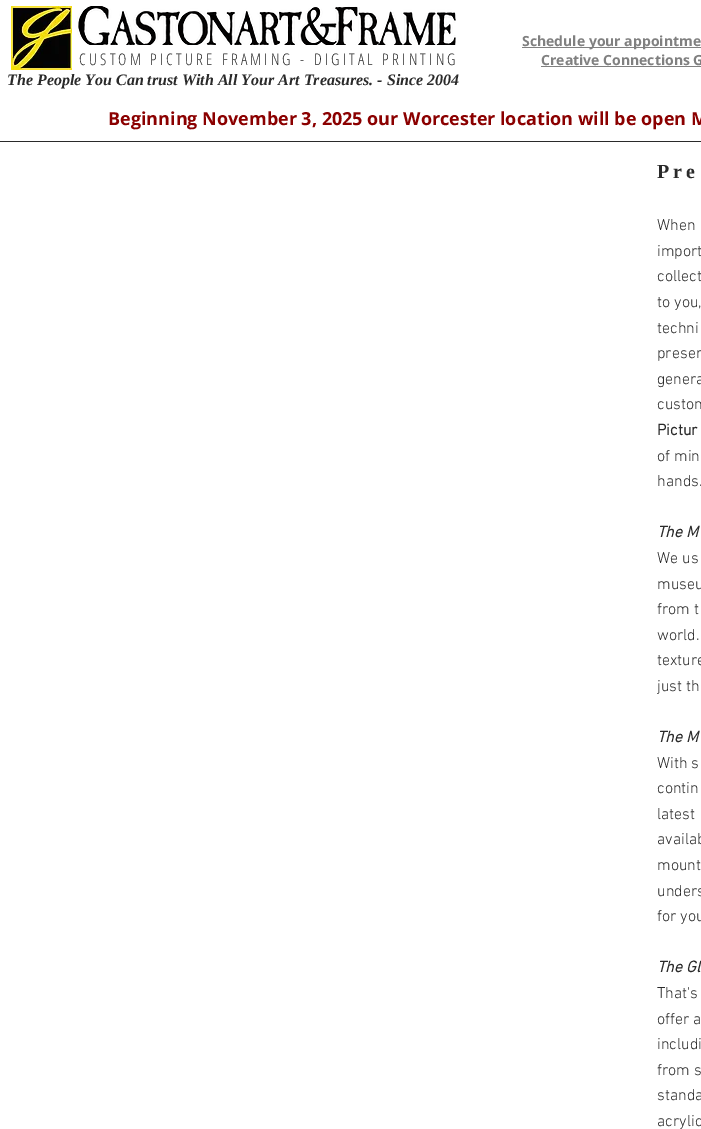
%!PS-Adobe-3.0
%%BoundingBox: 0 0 701 1129
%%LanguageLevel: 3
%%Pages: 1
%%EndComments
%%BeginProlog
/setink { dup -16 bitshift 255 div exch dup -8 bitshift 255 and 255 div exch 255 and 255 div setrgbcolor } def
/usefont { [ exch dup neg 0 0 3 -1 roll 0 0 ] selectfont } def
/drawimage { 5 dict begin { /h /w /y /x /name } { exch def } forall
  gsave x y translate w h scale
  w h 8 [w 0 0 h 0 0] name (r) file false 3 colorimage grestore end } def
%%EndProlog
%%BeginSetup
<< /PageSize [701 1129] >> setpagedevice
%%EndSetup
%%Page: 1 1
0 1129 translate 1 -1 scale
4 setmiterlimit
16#FFFFFF setink
0 0 701 1129 rectfill
(img1.raw) 11 6 61 64 drawimage
(img2.raw) 77 6 379 39 drawimage
/OpenSansCondensed-Light 16 usefont
16#2A2A2A setink
79 65 moveto 3.2 0 (CUSTOM PICTURE FRAMING - DIGITAL PRINTING) ashow
16#808080 setink
522 47 179 1 rectfill
/OpenSans-Bold 14 usefont
522 46 moveto (Schedule your appointme) show
541 65 moveto (Creative Connections G) show
541 66 160 1 rectfill
/LiberationSerif-BoldItalic 16 usefont
16#2A2A2A setink
7 85 moveto (The People You Can trust With All Your Art Treasures. - Since 2004) show
/OpenSans-Bold 18 usefont
16#8B0000 setink
108 125 moveto (Beginning November 3, 2025 our Worcester location will be open M) show
16#2A2A2A setink
0 141 701 1 rectfill
/LiberationSerif-Bold 20 usefont
657 178 moveto 4 0 (Pre) ashow
/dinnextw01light-Light 16 usefont
[
    [(When) 657 230]
    [(import) 657 256]
    [(collect) 657 281]
    [(to you,) 657 307]
    [(techni) 657 333]
    [(preser) 657 358]
    [(genera) 657 384]
    [(custom) 657 409]
] { aload pop moveto show } forall
/dinnextw01light-Bold 16 usefont
657 435 moveto (Pictur) show
/dinnextw01light-Light 16 usefont
657 461 moveto (of min) show
657 486 moveto (hands.) show
/dinnextw01light-BoldItalic 16 usefont
657 537 moveto (The M) show
/dinnextw01light-Light 16 usefont
[
    [(We us) 657 563]
    [(museu) 657 589]
    [(from t) 657 614]
    [(world.) 657 640]
    [(texture) 657 665]
    [(just th) 657 691]
] { aload pop moveto show } forall
/dinnextw01light-BoldItalic 16 usefont
657 742 moveto (The M) show
/dinnextw01light-Light 16 usefont
[
    [(With s) 657 768]
    [(contin) 657 793]
    [(latest) 657 819]
    [(availab) 657 844]
    [(mount) 657 870]
    [(unders) 657 896]
    [(for you) 657 921]
] { aload pop moveto show } forall
/dinnextw01light-BoldItalic 16 usefont
657 972 moveto (The Gl) show
/dinnextw01light-Light 16 usefont
[
    [(That's) 657 998]
    [(offer a) 657 1024]
    [(includi) 657 1049]
    [(from s) 657 1075]
    [(standa) 657 1100]
    [(acrylic) 657 1126]
] { aload pop moveto show } forall
showpage
%%EOF
